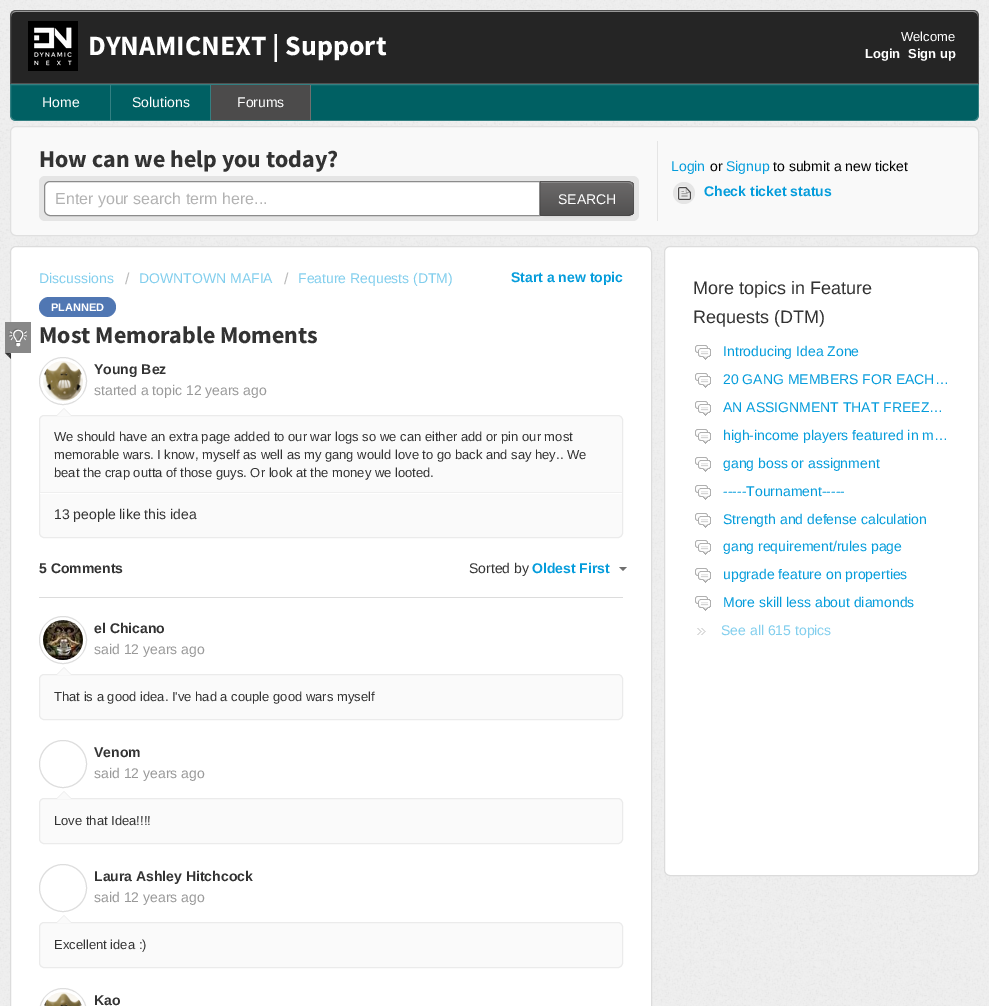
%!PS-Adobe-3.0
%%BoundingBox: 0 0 989 1006
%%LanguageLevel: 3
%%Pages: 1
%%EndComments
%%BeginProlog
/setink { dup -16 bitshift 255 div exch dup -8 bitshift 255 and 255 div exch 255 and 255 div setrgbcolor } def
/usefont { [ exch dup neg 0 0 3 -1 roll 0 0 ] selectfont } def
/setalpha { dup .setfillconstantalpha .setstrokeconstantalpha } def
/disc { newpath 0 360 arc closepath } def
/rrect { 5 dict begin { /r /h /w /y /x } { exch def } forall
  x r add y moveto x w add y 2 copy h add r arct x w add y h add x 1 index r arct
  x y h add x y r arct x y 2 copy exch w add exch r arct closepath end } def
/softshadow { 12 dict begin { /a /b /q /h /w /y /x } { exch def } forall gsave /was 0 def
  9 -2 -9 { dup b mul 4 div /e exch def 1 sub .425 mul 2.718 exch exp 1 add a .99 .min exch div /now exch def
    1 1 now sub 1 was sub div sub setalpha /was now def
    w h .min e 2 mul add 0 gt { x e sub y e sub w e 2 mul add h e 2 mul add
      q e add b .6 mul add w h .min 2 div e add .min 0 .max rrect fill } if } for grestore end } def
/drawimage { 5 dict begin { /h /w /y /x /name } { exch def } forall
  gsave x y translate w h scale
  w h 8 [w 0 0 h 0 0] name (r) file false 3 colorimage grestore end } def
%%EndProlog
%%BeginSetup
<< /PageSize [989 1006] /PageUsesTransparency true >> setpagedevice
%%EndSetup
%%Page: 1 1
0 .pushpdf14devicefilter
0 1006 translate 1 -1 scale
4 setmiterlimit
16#EFEFEF setink
0 0 989 1006 rectfill
(img1.raw) 0 0 989 1006 drawimage
16#252525 setink
16 10 moveto 973 10 lineto 976.5 10 979 12.5 979 16 curveto 979 84 lineto 10 84 lineto 10 16 lineto 10 12.5 12.5 10 16 10 curveto closepath fill
16#929292 setink
16 12 moveto 973 12 lineto 976 12 978 14 978 17 curveto 978 14 976 11 973 11 curveto 16 11 lineto 13 11 11 14 11 17 curveto 11 14 13 12 16 12 curveto closepath fill
0.2 setalpha
16#FFFFFF setink
16 10.5 moveto 973 10.5 lineto 976 10.5 978.5 13 978.5 16 curveto 978.5 83.5 lineto 10.5 83.5 lineto 10.5 16 lineto 10.5 13 13 10.5 16 10.5 curveto closepath stroke
1 setalpha
(img2.raw) 28 21 50 50 drawimage
/SourceSansPro-Bold 28 usefont
88 55 moveto (DYNAMICNEXT | Support) show
/LiberationSans-Regular 13 usefont
901 41 moveto (Welcome) show
/LiberationSans-Bold 13 usefont
865 58 moveto (Login) show
908 58 moveto (Sign up) show
16#006063 setink
10 84 moveto 979 84 lineto 979 115 lineto 979 118.5 976.5 121 973 121 curveto 16 121 lineto 12.5 121 10 118.5 10 115 curveto closepath fill
0.2 setalpha
16#FFFFFF setink
10.5 84.5 moveto 978.5 84.5 lineto 978.5 115 lineto 978.5 118 976 120.5 973 120.5 curveto 16 120.5 lineto 13 120.5 10.5 118 10.5 115 curveto closepath stroke
1 setalpha
16#338082 setink
110 85 1 35 rectfill
/LiberationSans-Regular 14 usefont
16#FFFFFF setink
42 107 moveto (Home) show
16#338082 setink
210 85 1 35 rectfill
16#FFFFFF setink
132 107 moveto (Solutions) show
16#4C4B4B setink
211 85 99 35 rectfill
16#706F6F setink
310 85 1 35 rectfill
16#FFFFFF setink
237 107 moveto (Forums) show
16#F9F9F9 setink
10.5 126.5 968 109 5.5 rrect gsave fill grestore
16#E0E0E0 setink
stroke
16#E5E5E5 setink
657 141 1 80 rectfill
/SourceSansPro-Bold 24 usefont
16#333333 setink
39 167 moveto (How can we help you today?) show
16#E5E5E5 setink
39 176 600 45 6 rrect fill
16#FFFFFF setink
50 181.5 moveto 539.5 181.5 lineto 539.5 215.5 lineto 50 215.5 lineto 47 215.5 44.5 213 44.5 210 curveto 44.5 187 lineto 44.5 184 47 181.5 50 181.5 curveto closepath gsave fill grestore
16#8C8C8C setink
stroke
/LiberationSans-Regular 16 usefont
16#B2B2B2 setink
55 204 moveto (Enter your search term here...) show
16#000000 setink
540 182 94 35 6 1 0.05 softshadow
16#626060 setink
540 181 moveto 628 181 lineto 631.5 181 634 183.5 634 187 curveto 634 210 lineto 634 213.5 631.5 216 628 216 curveto 540 216 lineto closepath fill
gsave
540 181 moveto 628 181 lineto 631.5 181 634 183.5 634 187 curveto 634 210 lineto 634 213.5 631.5 216 628 216 curveto 540 216 lineto closepath clip newpath
gsave 540 182 moveto 634 182 lineto 634 215 lineto 540 215 lineto closepath clip newpath
<< /ShadingType 2 /ColorSpace /DeviceRGB /Coords [587 182 587 215] /Extend [true true] /Function << /FunctionType 2 /Domain [0 1] /C0 [0.424 0.416 0.416] /C1 [0.322 0.318 0.318] /N 1 >> >> shfill grestore
grestore
16#898888 setink
541 183 moveto 628 183 lineto 631 183 633 185 633 188 curveto 633 187 lineto 633 184 631 182 628 182 curveto 541 182 lineto closepath fill
0.1 setalpha
16#000000 setink
540 181 moveto 541 182 lineto 629 182 lineto 632 183 lineto 631 182 630 181 628 181 curveto closepath fill
634 210 moveto 634 187 lineto 634 185.5 633 184 632 183 curveto 631.5 183.5 lineto 632.5 184 633 185.5 633 187 curveto 633 210 lineto 633 211.5 632.5 213 631.5 213.5 curveto 632 214 lineto 633 213 634 211.5 634 210 curveto closepath fill
0.25 setalpha
628 216 moveto 630 216 631 215 632 214 curveto 629 215 lineto 541 215 lineto 540 216 lineto closepath fill
0.1 setalpha
540 181 moveto 540 216 lineto 541 215 lineto 541 182 lineto closepath fill
/LiberationSans-Regular 14 usefont
1 setalpha
16#FFFFFF setink
558 204 moveto (SEARCH) show
16#049CDB setink
671 171 moveto (Login) show
16#000000 setink
710 171 moveto (or) show
16#049CDB setink
726 171 moveto (Signup) show
16#000000 setink
773 171 moveto (to submit a new ticket) show
16#E5E5E5 setink
684 193 11 disc fill
(img3.raw) 677 186 14 14 drawimage
/LiberationSans-Bold 14 usefont
16#049CDB setink
704 196 moveto (Check ticket status) show
16#FFFFFF setink
10.5 246.5 641 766 5.5 rrect gsave fill grestore
16#DCDCDC setink
stroke
/LiberationSans-Regular 14 usefont
16#82CEED setink
39 283 moveto (Discussions) show
/LiberationSans-Regular 16 usefont
16#BBBBBB setink
125 284 moveto (/) show
/LiberationSans-Regular 14 usefont
16#82CEED setink
139 283 moveto (DOWNTOWN MAFIA) show
/LiberationSans-Regular 16 usefont
16#BBBBBB setink
284 284 moveto (/) show
/LiberationSans-Regular 14 usefont
16#82CEED setink
298 283 moveto (Feature Requests \(DTM\)) show
/LiberationSans-Bold 14 usefont
16#049CDB setink
511 282 moveto (Start a new topic) show
16#5077B3 setink
39 297 77 20 10 rrect fill
/LiberationSans-Bold 11 usefont
16#FFFFFF setink
51 311 moveto (PLANNED) show
16#888888 setink
5 322 26 31 rectfill
(img4.raw) 8 328 19 19 drawimage
16#333333 setink
5 353 moveto 11 353 lineto 8 356 lineto closepath fill
11 353 moveto 11 359 lineto 8 356 lineto closepath fill
/SourceSansPro-Bold 24 usefont
39 343 moveto (Most Memorable Moments) show
16#DDDDDD setink
63 381 23.5 disc stroke
(img5.raw) 43 361 40 40 drawimage
16#FAFAFA setink
39.5 415.5 583 122 4.5 rrect gsave fill grestore
16#EBEBEB setink
stroke
72 416 moveto 56 416 lineto 64 408 lineto closepath fill
16#FAFAFA setink
71 416 moveto 57 416 lineto 64 409 lineto closepath fill
/LiberationSans-Bold 14 usefont
16#333333 setink
94 374 moveto (Young Bez) show
/LiberationSans-Regular 14 usefont
16#999999 setink
94 395 moveto (started a topic 12 years ago) show
/LiberationSans-Regular 13 usefont
16#333333 setink
[
    [(We should have an extra page added to our war logs so we can either add or pin our most) 54 441]
    [(memorable wars. I know, myself as well as my gang would love to go back and say hey.. We) 54 459]
    [(beat the crap outta of those guys. Or look at the money we looted.) 54 477]
] { aload pop moveto show } forall
16#EFEFEF setink
40 492 582 1 rectfill
16#FFFFFF setink
40 493 582 1 rectfill
/LiberationSans-Regular 14 usefont
16#333333 setink
54 519 moveto (13 people like this idea) show
/LiberationSans-Bold 14 usefont
39 573 moveto (5 Comments) show
/LiberationSans-Regular 14 usefont
469 573 moveto (Sorted by) show
/LiberationSans-Bold 14 usefont
16#049CDB setink
532 573 moveto (Oldest First) show
16#6F6F6F setink
619 567 moveto 627 567 lineto 623 571 lineto closepath fill
16#DCDCDC setink
39 597 584 1 rectfill
16#DDDDDD setink
63 640 23.5 disc stroke
(img6.raw) 43 620 40 40 drawimage
16#FAFAFA setink
39.5 674.5 583 45 4.5 rrect gsave fill grestore
16#EBEBEB setink
stroke
72 675 moveto 56 675 lineto 64 667 lineto closepath fill
16#FAFAFA setink
71 675 moveto 57 675 lineto 64 668 lineto closepath fill
16#333333 setink
94 633 moveto (el Chicano) show
/LiberationSans-Regular 14 usefont
16#999999 setink
94 654 moveto (said 12 years ago) show
/LiberationSans-Regular 13 usefont
16#333333 setink
54 701 moveto (That is a good idea. I've had a couple good wars myself) show
16#DDDDDD setink
63 764 23.5 disc stroke
16#FAFAFA setink
39.5 798.5 583 45 4.5 rrect gsave fill grestore
16#EBEBEB setink
stroke
72 799 moveto 56 799 lineto 64 791 lineto closepath fill
16#FAFAFA setink
71 799 moveto 57 799 lineto 64 792 lineto closepath fill
/LiberationSans-Bold 14 usefont
16#333333 setink
94 757 moveto (Venom) show
/LiberationSans-Regular 14 usefont
16#999999 setink
94 778 moveto (said 12 years ago) show
/LiberationSans-Regular 13 usefont
16#333333 setink
54 825 moveto (Love that Idea!!!!) show
16#DDDDDD setink
63 888 23.5 disc stroke
16#FAFAFA setink
39.5 922.5 583 45 4.5 rrect gsave fill grestore
16#EBEBEB setink
stroke
72 923 moveto 56 923 lineto 64 915 lineto closepath fill
16#FAFAFA setink
71 923 moveto 57 923 lineto 64 916 lineto closepath fill
/LiberationSans-Bold 14 usefont
16#333333 setink
94 881 moveto (Laura Ashley Hitchcock) show
/LiberationSans-Regular 14 usefont
16#999999 setink
94 902 moveto (said 12 years ago) show
/LiberationSans-Regular 13 usefont
16#333333 setink
54 949 moveto (Excellent idea :\)) show
16#DDDDDD setink
39.5 988.5 47 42 23.5 rrect stroke
(img7.raw) 44 992 38 14 drawimage
/LiberationSans-Bold 14 usefont
16#333333 setink
94 1005 moveto (Kao) show
16#FFFFFF setink
664.5 246.5 314 629 5.5 rrect gsave fill grestore
16#DCDCDC setink
stroke
/LiberationSans-Regular 18 usefont
16#333333 setink
693 294 moveto (More topics in Feature) show
693 323 moveto (Requests \(DTM\)) show
(img8.raw) 695 345 16 15 drawimage
/LiberationSans-Regular 14 usefont
16#049CDB setink
723 356 moveto (Introducing Idea Zone) show
(img8.raw) 695 373 16 15 drawimage
723 384 moveto (20 GANG MEMBERS FOR EACH…) show
(img8.raw) 695 401 16 15 drawimage
723 412 moveto (AN ASSIGNMENT THAT FREEZ…) show
(img8.raw) 695 429 16 15 drawimage
723 440 moveto (high-income players featured in m…) show
(img8.raw) 695 457 16 15 drawimage
723 468 moveto (gang boss or assignment) show
(img8.raw) 695 485 16 15 drawimage
723 496 moveto (-----Tournament-----) show
(img8.raw) 695 513 16 15 drawimage
723 524 moveto (Strength and defense calculation) show
(img8.raw) 695 540 16 15 drawimage
723 551 moveto (gang requirement/rules page) show
(img8.raw) 695 568 16 15 drawimage
723 579 moveto (upgrade feature on properties) show
(img8.raw) 695 596 16 15 drawimage
723 607 moveto (More skill less about diamonds) show
(img9.raw) 697 628 9 7 drawimage
16#82CEED setink
721 635 moveto (See all 615 topics) show
.poppdf14devicefilter showpage
%%EOF
